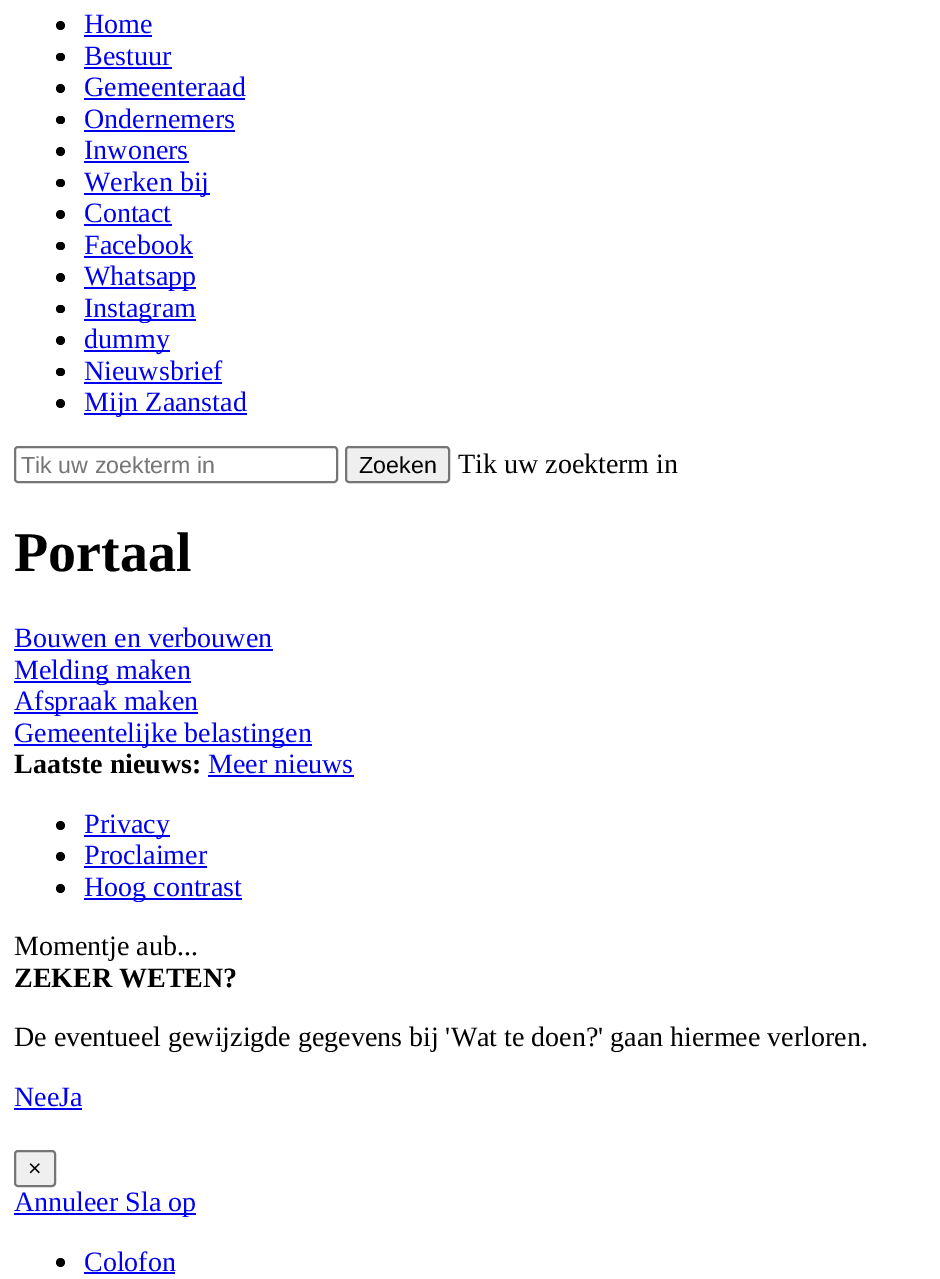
%!PS-Adobe-3.0
%%BoundingBox: 0 0 940 1279
%%LanguageLevel: 3
%%Pages: 1
%%EndComments
%%BeginProlog
/setink { dup -16 bitshift 255 div exch dup -8 bitshift 255 and 255 div exch 255 and 255 div setrgbcolor } def
/usefont { [ exch dup neg 0 0 3 -1 roll 0 0 ] selectfont } def
/disc { newpath 0 360 arc closepath } def
/rrect { 5 dict begin { /r /h /w /y /x } { exch def } forall
  x r add y moveto x w add y 2 copy h add r arct x w add y h add x 1 index r arct
  x y h add x y r arct x y 2 copy exch w add exch r arct closepath end } def
%%EndProlog
%%BeginSetup
<< /PageSize [940 1279] >> setpagedevice
%%EndSetup
%%Page: 1 1
0 1279 translate 1 -1 scale
4 setmiterlimit
16#FFFFFF setink
0 0 940 1279 rectfill
16#000000 setink
60.5 25.5 4.5 disc fill
/LiberationSerif-Regular 28 usefont
16#0000EE setink
84 33 moveto (Home) show
84 35 68 2 rectfill
16#000000 setink
56 53 9 8 4 rrect fill
16#0000EE setink
84 65 moveto (Bestuur) show
84 67 88 2 rectfill
16#000000 setink
60.5 88.5 4.5 disc fill
16#0000EE setink
84 96 moveto (Gemeenteraad) show
84 98 161 2 rectfill
16#000000 setink
56 116 9 8 4 rrect fill
16#0000EE setink
84 128 moveto (Ondernemers) show
84 130 151 2 rectfill
16#000000 setink
60.5 151.5 4.5 disc fill
16#0000EE setink
84 159 moveto (Inwoners) show
84 161 105 2 rectfill
16#000000 setink
56 179 9 8 4 rrect fill
16#0000EE setink
84 193 126 2 rectfill
84 191 moveto (Werken bij) show
16#000000 setink
60.5 214.5 4.5 disc fill
16#0000EE setink
84 222 moveto (Contact) show
84 224 88 2 rectfill
16#000000 setink
56 242 9 8 4 rrect fill
16#0000EE setink
84 254 moveto (Facebook) show
84 256 109 2 rectfill
16#000000 setink
60.5 277.5 4.5 disc fill
16#0000EE setink
84 287 112 2 rectfill
84 285 moveto (Whatsapp) show
16#000000 setink
56 305 9 8 4 rrect fill
16#0000EE setink
84 319 112 2 rectfill
84 317 moveto (Instagram) show
16#000000 setink
60.5 340.5 4.5 disc fill
16#0000EE setink
84 350 86 2 rectfill
84 348 moveto (dummy) show
16#000000 setink
56 368 9 8 4 rrect fill
16#0000EE setink
84 380 moveto (Nieuwsbrief) show
84 382 138 2 rectfill
16#000000 setink
60.5 403.5 4.5 disc fill
16#0000EE setink
84 413 163 2 rectfill
84 411 moveto (Mijn Zaanstad) show
16#767676 setink
2 setlinewidth
15 447 322 35 3 rrect stroke
/LiberationSans-Regular 23.25 usefont
16#757575 setink
21 473 moveto (Tik uw zoekterm in) show
16#EFEFEF setink
346 447 103 35 3 rrect gsave fill grestore
16#767676 setink
stroke
16#000000 setink
359 473 moveto (Zoeken) show
/LiberationSerif-Regular 28 usefont
458 473 moveto (Tik uw zoekterm in) show
/LiberationSerif-Bold 56 usefont
14 571 moveto (Portaal) show
/LiberationSerif-Regular 28 usefont
16#0000EE setink
14 647 moveto (Bouwen en verbouwen) show
14 649 259 2 rectfill
14 681 177 2 rectfill
14 679 moveto (Melding maken) show
14 712 184 2 rectfill
14 710 moveto (Afspraak maken) show
14 744 298 2 rectfill
14 742 moveto (Gemeentelijke belastingen) show
/LiberationSerif-Bold 28 usefont
16#000000 setink
14 773 moveto (Laatste nieuws:) show
/LiberationSerif-Regular 28 usefont
16#0000EE setink
208 773 moveto (Meer nieuws) show
208 775 146 2 rectfill
16#000000 setink
60.5 825.5 4.5 disc fill
16#0000EE setink
84 835 86 2 rectfill
84 833 moveto (Privacy) show
16#000000 setink
60.5 856.5 4.5 disc fill
16#0000EE setink
84 864 moveto (Proclaimer) show
84 866 123 2 rectfill
16#000000 setink
60.5 888.5 4.5 disc fill
16#0000EE setink
84 898 158 2 rectfill
84 896 moveto (Hoog contrast) show
16#000000 setink
14 955 moveto (Momentje aub...) show
/LiberationSerif-Bold 28 usefont
14 987 moveto (ZEKER WETEN?) show
/LiberationSerif-Regular 28 usefont
14 1046 moveto (De eventueel gewijzigde gegevens bij 'Wat te doen?' gaan hiermee verloren.) show
16#0000EE setink
14 1106 moveto (NeeJa) show
14 1108 68 2 rectfill
16#EFEFEF setink
15 1151 40 35 3 rrect gsave fill grestore
16#767676 setink
stroke
/LiberationSans-Regular 23.25 usefont
16#000000 setink
28 1176 moveto (×) show
16#0000EE setink
14 1213 182 2 rectfill
/LiberationSerif-Regular 28 usefont
14 1211 moveto (Annuleer Sla op) show
16#000000 setink
60.5 1262.5 4.5 disc fill
16#0000EE setink
84 1271 moveto (Colofon) show
84 1272 91 2 rectfill
showpage
%%EOF
